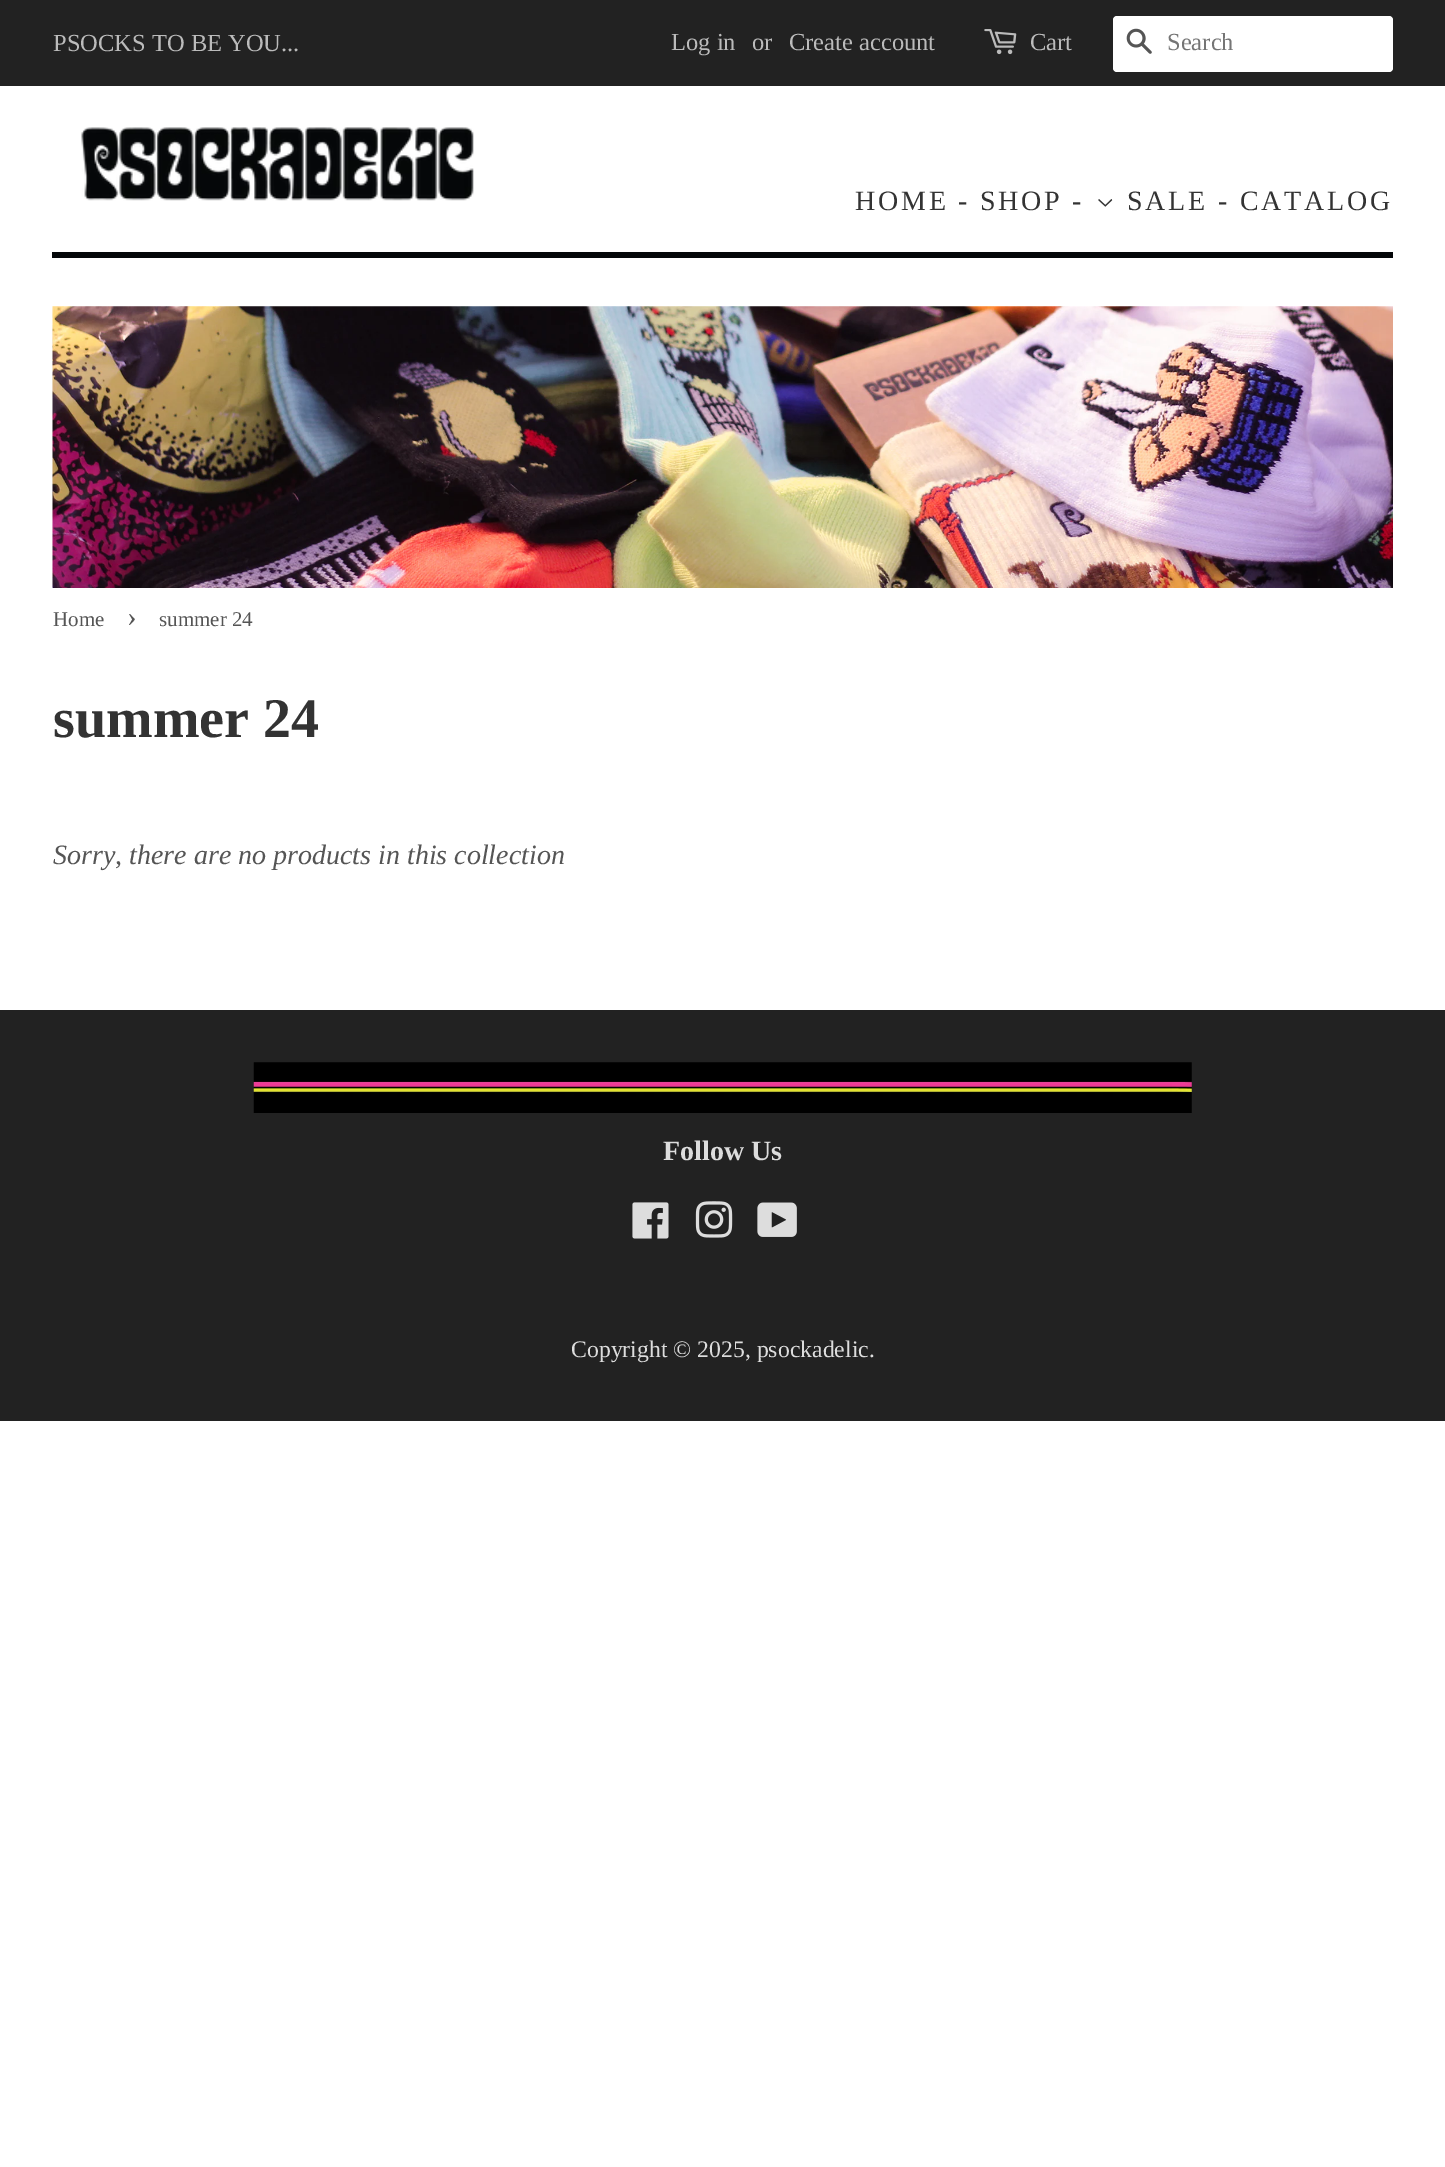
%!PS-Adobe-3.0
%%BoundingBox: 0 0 1445 2167
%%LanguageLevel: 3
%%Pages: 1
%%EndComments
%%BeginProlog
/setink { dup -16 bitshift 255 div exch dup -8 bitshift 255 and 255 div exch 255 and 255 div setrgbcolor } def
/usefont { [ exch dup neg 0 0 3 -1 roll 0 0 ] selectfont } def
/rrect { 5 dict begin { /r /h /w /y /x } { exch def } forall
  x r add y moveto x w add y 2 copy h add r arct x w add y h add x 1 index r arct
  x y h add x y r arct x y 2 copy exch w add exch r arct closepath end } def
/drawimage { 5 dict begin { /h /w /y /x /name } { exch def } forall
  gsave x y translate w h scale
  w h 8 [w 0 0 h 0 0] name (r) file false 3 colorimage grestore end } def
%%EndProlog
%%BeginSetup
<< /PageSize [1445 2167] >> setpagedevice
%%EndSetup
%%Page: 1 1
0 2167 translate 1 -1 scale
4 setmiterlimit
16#FFFFFF setink
0 0 1445 2167 rectfill
16#222222 setink
0 0 1445 86 rectfill
/LiberationSerif-Regular 24.5 usefont
16#BBBBBB setink
[
    [(PSOCKS TO BE YOU...) 53 51]
    [(Log in) 671 50]
    [(or) 752 50]
    [(Create account) 789 50]
] { aload pop moveto show } forall
(img1.raw) 984 29 33 26 drawimage
1030 50 moveto (Cart) show
16#FFFFFF setink
1113 16 280 56 4 rrect fill
(img2.raw) 1126 28 26 26 drawimage
16#757575 setink
1167 50 moveto (Search) show
(img3.raw) 81 127 393 74 drawimage
/LiberationSerif-Regular 28 usefont
16#333333 setink
855 210 moveto 2.75 0 (HOME - SHOP -) ashow
(img4.raw) 1098 199 15 8 drawimage
1127 210 moveto 2.75 0 (SALE - CATALOG) ashow
16#040608 setink
52 252 1341 6 rectfill
(img5.raw) 52 306 1341 282 drawimage
/LiberationSerif-Regular 21 usefont
16#555555 setink
53 626 moveto (Home) show
/LiberationSerif-Regular 29 usefont
127 626 moveto (›) show
/LiberationSerif-Regular 21 usefont
159 626 moveto (summer 24) show
/LiberationSerif-Bold 56 usefont
16#333333 setink
53 737 moveto (summer 24) show
/LiberationSerif-Italic 28 usefont
16#555555 setink
53 864 moveto (Sorry, there are no products in this collection) show
16#222222 setink
0 1010 1445 411 rectfill
(img6.raw) 253 1062 939 51 drawimage
/LiberationSerif-Bold 28 usefont
16#DDDDDD setink
663 1160 moveto (Follow Us) show
(img7.raw) 632 1202 37 37 drawimage
(img8.raw) 695 1201 38 37 drawimage
(img9.raw) 757 1202 40 35 drawimage
/LiberationSerif-Regular 23.75 usefont
571 1357 moveto (Copyright © 2025, psockadelic.) show
showpage
%%EOF
